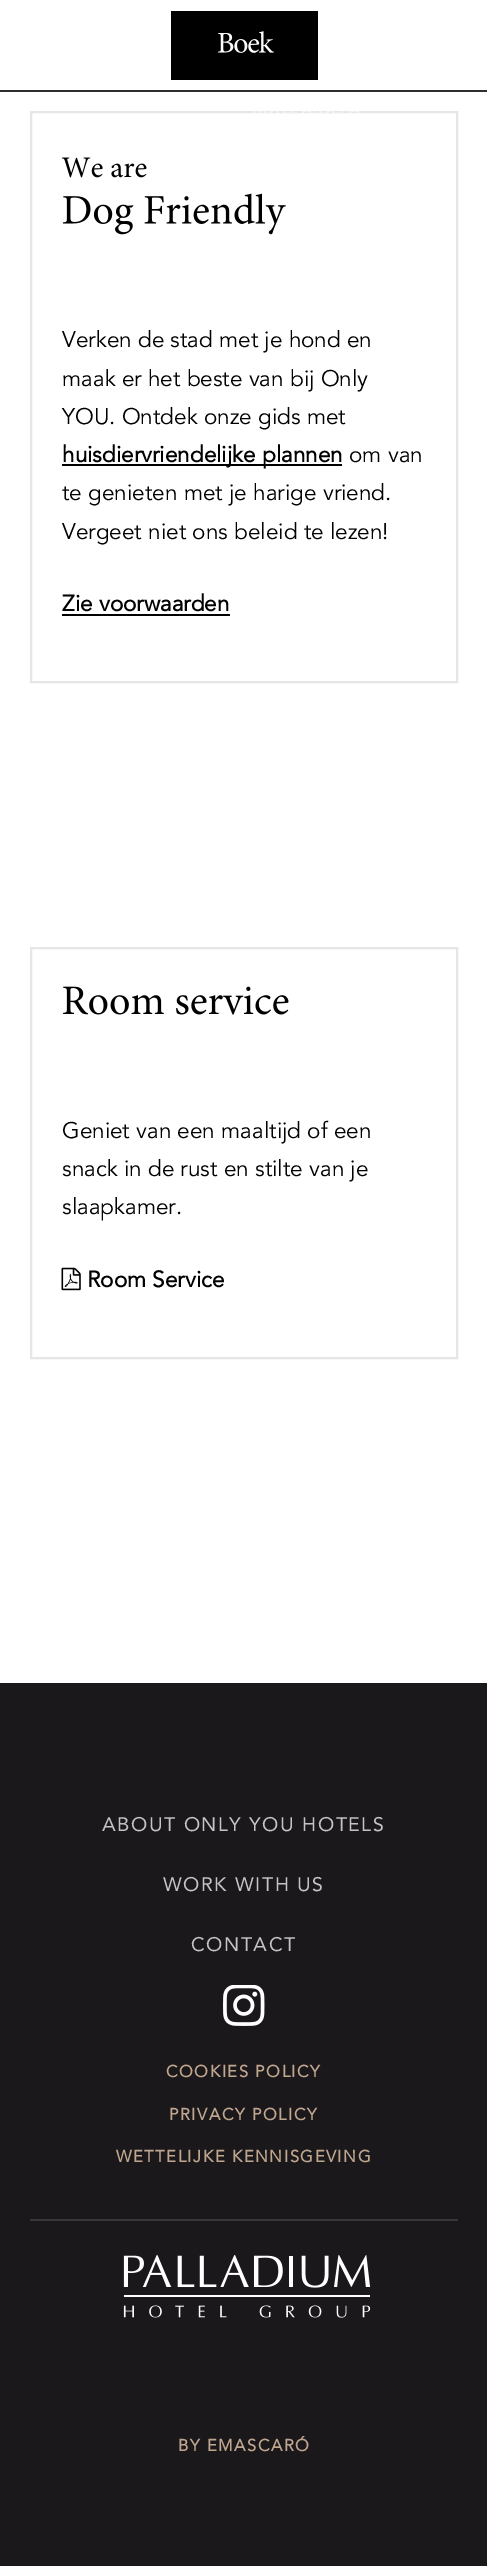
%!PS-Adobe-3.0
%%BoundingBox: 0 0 487 2566
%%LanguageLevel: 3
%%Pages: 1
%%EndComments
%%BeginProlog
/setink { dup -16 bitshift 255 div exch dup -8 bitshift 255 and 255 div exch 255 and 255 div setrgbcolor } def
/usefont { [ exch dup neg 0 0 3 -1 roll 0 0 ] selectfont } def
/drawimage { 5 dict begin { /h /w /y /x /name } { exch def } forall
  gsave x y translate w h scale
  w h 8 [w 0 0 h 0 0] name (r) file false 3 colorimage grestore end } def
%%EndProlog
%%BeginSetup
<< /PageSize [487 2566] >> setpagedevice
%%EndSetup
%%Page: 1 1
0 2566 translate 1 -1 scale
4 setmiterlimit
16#FFFFFF setink
0 0 487 2566 rectfill
16#2E2E2F setink
0 90 moveto 0 92 lineto 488 92 lineto 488 2 lineto 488 90 lineto closepath fill
16#000000 setink
171 11 147 69 rectfill
(img1.raw) 218 31 56 22 drawimage
16#E6E6E7 setink
2 setlinewidth
31 112 426 570 rectstroke
(img2.raw) 253 111 107 2 drawimage
(img3.raw) 62 157 85 21 drawimage
(img4.raw) 62 193 224 42 drawimage
/Avenir-Regular 22.5 usefont
16#000000 setink
[
    [(Verken de stad met je hond en) 62 347]
    [(maak er het beste van bij Only) 62 386]
    [(YOU. Ontdek onze gids met) 62 424]
] { aload pop moveto show } forall
62 464 280 2 rectfill
/Avenir-Bold 22.5 usefont
62 462 moveto (huisdiervriendelijke plannen) show
/Avenir-Regular 22.5 usefont
[
    [(om van) 349 462]
    [(te genieten met je harige vriend.) 62 500]
    [(Vergeet niet ons beleid te lezen!) 62 539]
] { aload pop moveto show } forall
/Avenir-Bold 22.5 usefont
62 611 moveto (Zie voorwaarden) show
62 614 168 2 rectfill
16#E6E6E7 setink
31 948 426 410 rectstroke
(img5.raw) 63 986 226 29 drawimage
/Avenir-Regular 22.5 usefont
16#000000 setink
[
    [(Geniet van een maaltijd of een) 62 1138]
    [(snack in de rust en stilte van je) 62 1176]
    [(slaapkamer.) 62 1214]
] { aload pop moveto show } forall
(img6.raw) 61 1267 20 24 drawimage
/Avenir-Bold 22.5 usefont
87 1287 moveto (Room Service) show
16#1B181C setink
0 1683 487 883 rectfill
/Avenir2-Regular 19.5 usefont
16#C4C4C4 setink
102 1831 moveto 1.5 0 (ABOUT ONLY YOU HOTELS) ashow
163 1891 moveto 1.5 0 (WORK WITH US) ashow
191 1951 moveto 1.5 0 (CONTACT) ashow
(img7.raw) 223 1985 42 41 drawimage
/Avenir-Bold 16.5 usefont
16#BFA68E setink
166 2077 moveto 1.5 0 (COOKIES POLICY) ashow
169 2120 moveto 1.5 0 (PRIVACY POLICY) ashow
116 2162 moveto 1.5 0 (WETTELIJKE KENNISGEVING) ashow
16#373738 setink
30 2219 428 2 rectfill
(img8.raw) 123 2255 248 63 drawimage
16#BFA68E setink
178 2451 moveto 1.5 0 (BY EMASCARÓ) ashow
showpage
%%EOF
